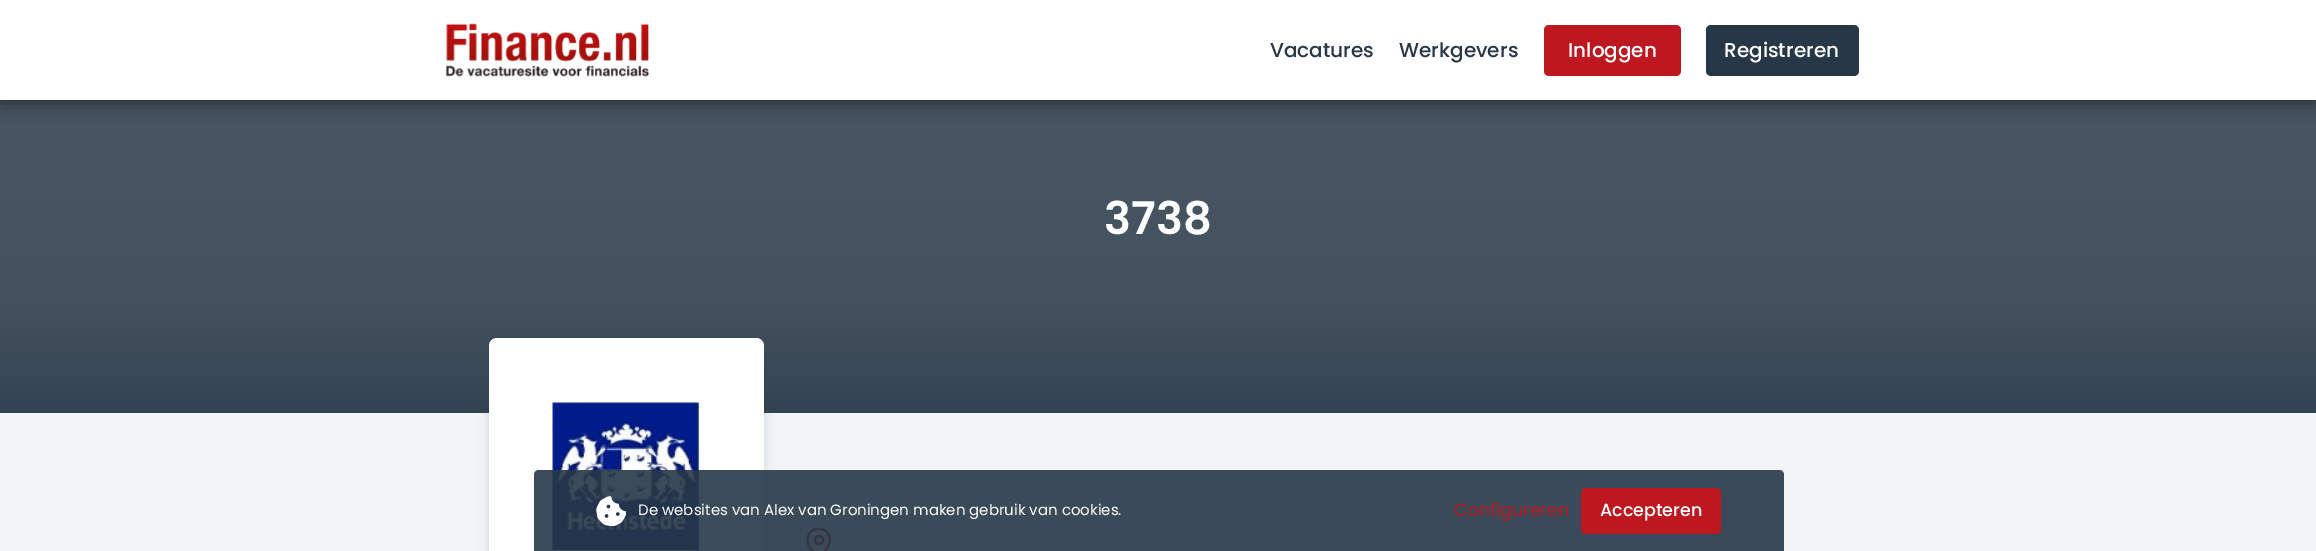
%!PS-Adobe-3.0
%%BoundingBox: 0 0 2316 551
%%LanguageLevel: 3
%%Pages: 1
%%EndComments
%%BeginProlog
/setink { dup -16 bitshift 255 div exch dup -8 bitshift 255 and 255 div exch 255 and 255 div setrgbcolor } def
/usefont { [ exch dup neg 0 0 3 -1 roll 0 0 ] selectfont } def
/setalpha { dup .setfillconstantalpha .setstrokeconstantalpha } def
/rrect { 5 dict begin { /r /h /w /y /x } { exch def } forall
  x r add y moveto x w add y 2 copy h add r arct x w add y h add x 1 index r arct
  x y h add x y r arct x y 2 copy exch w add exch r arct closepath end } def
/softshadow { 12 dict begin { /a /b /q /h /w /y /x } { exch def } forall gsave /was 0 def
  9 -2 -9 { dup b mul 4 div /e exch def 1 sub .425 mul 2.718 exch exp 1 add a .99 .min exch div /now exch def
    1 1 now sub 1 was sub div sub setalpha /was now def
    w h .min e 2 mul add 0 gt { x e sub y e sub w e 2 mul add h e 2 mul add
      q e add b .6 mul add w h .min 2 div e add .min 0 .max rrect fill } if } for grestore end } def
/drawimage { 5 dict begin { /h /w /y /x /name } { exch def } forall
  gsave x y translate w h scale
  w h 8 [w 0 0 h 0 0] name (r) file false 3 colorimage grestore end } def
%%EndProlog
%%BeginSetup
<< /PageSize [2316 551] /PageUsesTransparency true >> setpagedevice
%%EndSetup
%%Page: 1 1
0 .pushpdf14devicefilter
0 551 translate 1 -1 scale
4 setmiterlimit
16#F3F4F6 setink
0 0 2316 551 rectfill
gsave 0 100 moveto 2316 100 lineto 2316 413 lineto 0 413 lineto closepath clip newpath
<< /ShadingType 2 /ColorSpace /DeviceRGB /Coords [1158 100 1158 413] /Extend [true true] /Function << /FunctionType 3 /Domain [0 1] /Functions [<< /FunctionType 2 /Domain [0 1] /C0 [0.282 0.333 0.384] /C1 [0.267 0.322 0.373] /N 1 >> << /FunctionType 2 /Domain [0 1] /C0 [0.267 0.322 0.373] /C1 [0.2 0.259 0.318] /N 1 >>] /Bounds [0.64] /Encode [0 1 0 1] >> >> shfill grestore
16#000000 setink
0 3 2316 100 0 9 0.5 softshadow
16#FFFFFF setink
0 0 2316 100 rectfill
(img1.raw) 445 23 204 54 drawimage
/Poppins-Medium 20 usefont
16#273747 setink
1270 57 moveto (Vacatures) show
1399 57 moveto (Werkgevers) show
16#BD171F setink
1544 25 137 51 5 rrect fill
16#FFFFFF setink
1568 57 moveto (Inloggen) show
16#273747 setink
1706 25 153 51 5 rrect fill
16#FFFFFF setink
1724 57 moveto (Registreren) show
/Poppins-SemiBold 45 usefont
1104 234 moveto (3738) show
16#273747 setink
489 340 275 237 8 6 0.17 softshadow
16#FFFFFF setink
489 338 275 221 8 rrect fill
(img2.raw) 552 402 148 149 drawimage
(img3.raw) 806 528 26 23 drawimage
0.9 setalpha
16#273747 setink
539 470 moveto 1779 470 lineto 1782 470 1784 472 1784 475 curveto 1784 551 lineto 534 551 lineto 534 475 lineto 534 472 536 470 539 470 curveto closepath fill
1 setalpha
(img4.raw) 596 496 30 30 drawimage
/Poppins-Regular 15 usefont
16#FFFFFF setink
638 515 moveto (De websites van Alex van Groningen maken gebruik van cookies.) show
/Poppins-Regular 17.5 usefont
16#BD171F setink
1454 516 moveto (Configureren) show
1581 488 140 46 5 rrect fill
/Poppins-Medium 17.5 usefont
16#FFFFFF setink
1600 516 moveto (Accepteren) show
.poppdf14devicefilter showpage
%%EOF
